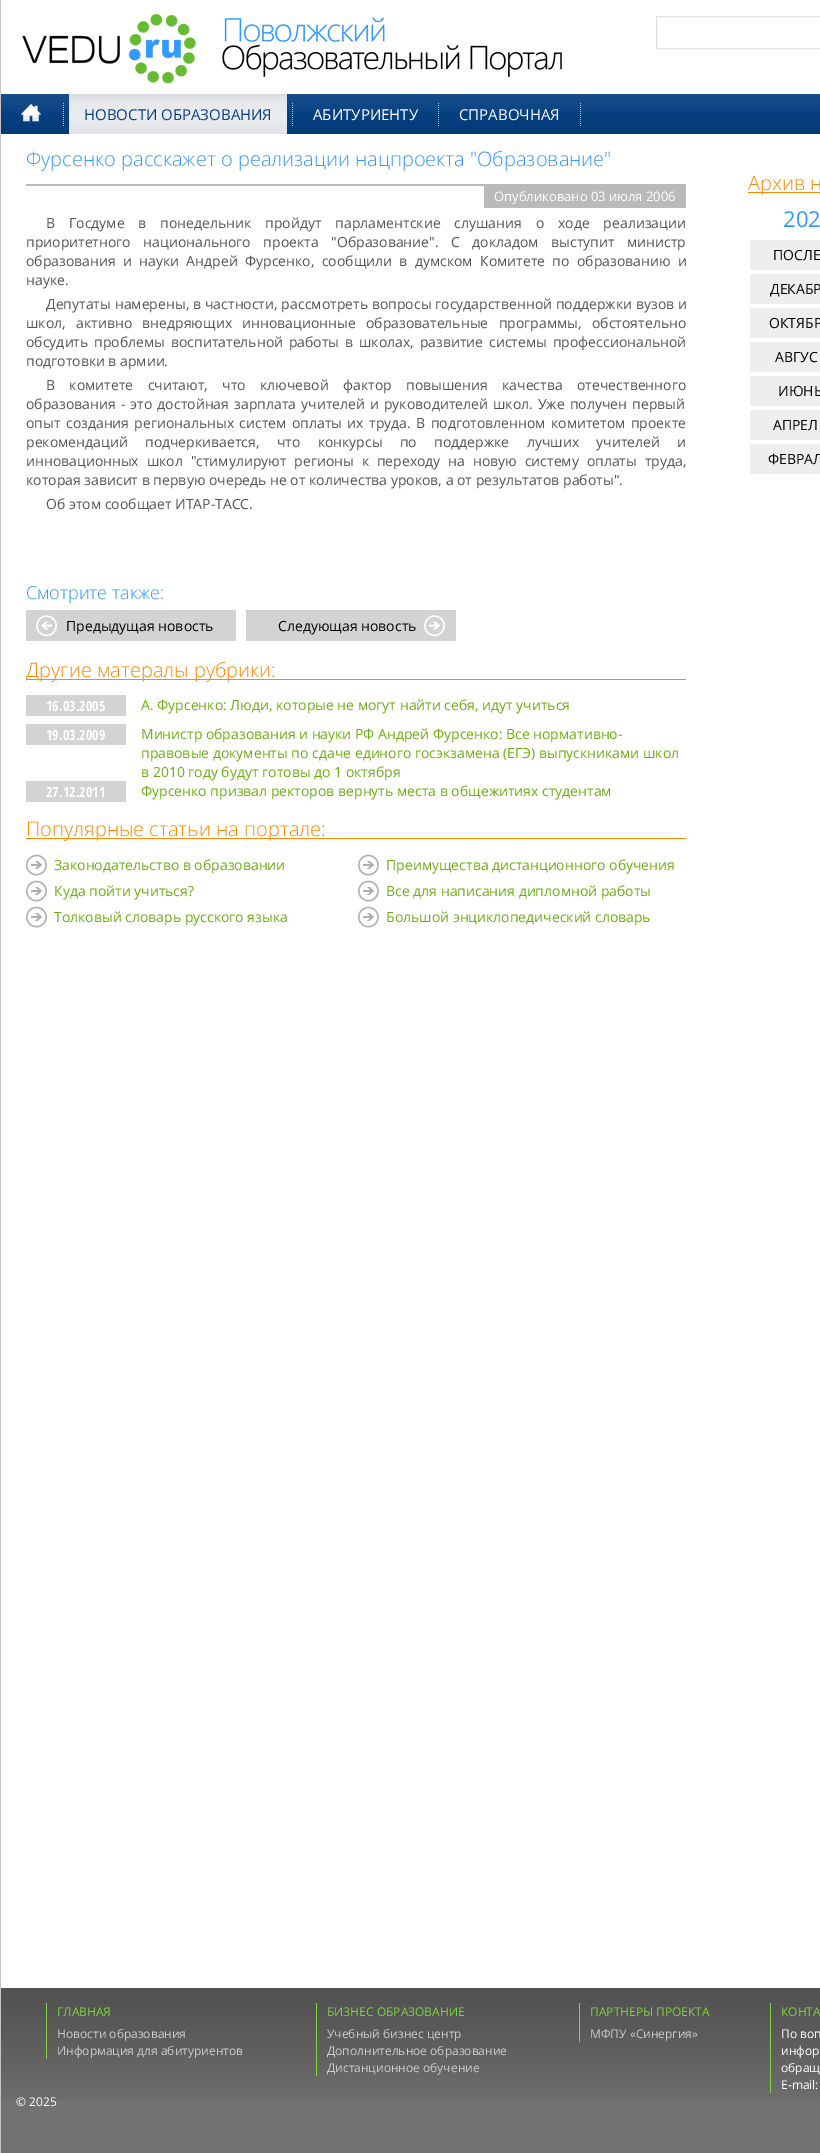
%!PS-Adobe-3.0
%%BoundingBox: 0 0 820 2153
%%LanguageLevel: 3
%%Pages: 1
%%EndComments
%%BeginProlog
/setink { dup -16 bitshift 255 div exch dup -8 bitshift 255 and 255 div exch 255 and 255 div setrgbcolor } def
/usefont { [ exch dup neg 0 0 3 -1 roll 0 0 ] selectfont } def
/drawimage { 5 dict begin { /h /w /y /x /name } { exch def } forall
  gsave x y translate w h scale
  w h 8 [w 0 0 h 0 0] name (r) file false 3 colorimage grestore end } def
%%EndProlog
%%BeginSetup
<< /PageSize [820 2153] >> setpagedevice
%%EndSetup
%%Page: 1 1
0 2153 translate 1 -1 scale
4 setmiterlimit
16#FFFFFF setink
0 0 820 2153 rectfill
16#C5C5C5 setink
0 0 1 2153 rectfill
(img1.raw) 22 14 174 69 drawimage
(img2.raw) 222 17 340 60 drawimage
16#DFE1E5 setink
656.5 16.5 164 32 rectstroke
(img3.raw) 1 94 819 40 drawimage
(img4.raw) 21 104 20 18 drawimage
(img5.raw) 63 103 1 23 drawimage
(img6.raw) 69 94 218 40 drawimage
/OpenSans-Regular 15 usefont
16#053F81 setink
84 120 moveto (НОВОСТИ ОБРАЗОВАНИЯ) show
(img5.raw) 292 103 1 23 drawimage
16#FFFFFF setink
313 120 moveto (АБИТУРИЕНТУ) show
(img5.raw) 438 103 1 23 drawimage
459 120 moveto (СПРАВОЧНАЯ) show
(img5.raw) 580 103 1 23 drawimage
16#BABABA setink
26 184 660 2 rectfill
/OpenSans-Light 20 usefont
16#3399FF setink
26 166 moveto (Фурсенко расскажет о реализации нацпроекта "Образование") show
16#BABABA setink
484 186 202 22 rectfill
/OpenSans-Regular 13 usefont
16#FFFFFF setink
494 201 moveto (Опубликовано 03 июля 2006) show
/OpenSans-Regular 14 usefont
16#545454 setink
46 228 moveto 10.25 0 32 (В Госдуме в понедельник пройдут парламентские слушания о ходе реализации) widthshow
26 247 moveto 9 0 32 (приоритетного национального проекта "Образование". С докладом выступит министр) widthshow
26 266 moveto 3.75 0 32 (образования и науки Андрей Фурсенко, сообщили в думском Комитете по образованию и) widthshow
26 285 moveto (науке.) show
46 309 moveto 0.25 0 32 (Депутаты намерены, в частности, рассмотреть вопросы государственной поддержки вузов и) widthshow
26 328 moveto 6.75 0 32 (школ, активно внедряющих инновационные образовательные программы, обстоятельно) widthshow
26 347 moveto 2.25 0 32 (обсудить проблемы воспитательной работы в школах, развитие системы профессиональной) widthshow
26 366 moveto (подготовки в армии.) show
46 390 moveto 10.75 0 32 (В комитете считают, что ключевой фактор повышения качества отечественного) widthshow
26 409 moveto 1.5 0 32 (образования - это достойная зарплата учителей и руководителей школ. Уже получен первый) widthshow
26 428 moveto 1.75 0 32 (опыт создания региональных систем оплаты их труда. В подготовленном комитетом проекте) widthshow
26 447 moveto 13.75 0 32 (рекомендаций подчеркивается, что конкурсы по поддержке лучших учителей и) widthshow
26 466 moveto 4.25 0 32 (инновационных школ "стимулируют регионы к переходу на новую систему оплаты труда,) widthshow
26 485 moveto (которая зависит в первую очередь не от количества уроков, а от результатов работы".) show
46 509 moveto (Об этом сообщает ИТАР-ТАСС.) show
/OpenSans-Light 18 usefont
16#3399FF setink
26 599 moveto (Смотрите также:) show
16#D3D3D3 setink
26 610 210 31 rectfill
(img7.raw) 36 615 21 22 drawimage
/OpenSans-Regular 14 usefont
16#000000 setink
66 631 moveto (Предыдущая новость) show
16#D3D3D3 setink
246 610 210 31 rectfill
(img8.raw) 424 615 21 22 drawimage
16#000000 setink
278 631 moveto (Следующая новость) show
16#FF8900 setink
26 679 660 1 rectfill
/OpenSans-Light 20 usefont
26 677 moveto (Другие матералы рубрики:) show
16#D3D3D3 setink
26 695 100 21 rectfill
/OpenSansCondensed-Bold 14 usefont
16#FFFFFF setink
46 711 moveto (16.03.2005) show
/OpenSans-Regular 14 usefont
16#6BAF11 setink
141 710 moveto (А. Фурсенко: Люди, которые не могут найти себя, идут учиться) show
16#D3D3D3 setink
26 724 100 21 rectfill
/OpenSansCondensed-Bold 14 usefont
16#FFFFFF setink
46 740 moveto (19.03.2009) show
/OpenSans-Regular 14 usefont
16#6BAF11 setink
[
    [(Министр образования и науки РФ Андрей Фурсенко: Все нормативно-) 141 739]
    [(правовые документы по сдаче единого госэкзамена \(ЕГЭ\) выпускниками школ) 141 758]
    [(в 2010 году будут готовы до 1 октября) 141 777]
] { aload pop moveto show } forall
16#D3D3D3 setink
26 781 100 21 rectfill
/OpenSansCondensed-Bold 14 usefont
16#FFFFFF setink
46 797 moveto (27.12.2011) show
/OpenSans-Regular 14 usefont
16#6BAF11 setink
141 796 moveto (Фурсенко призвал ректоров вернуть места в общежитиях студентам) show
16#FF8900 setink
26 838 660 1 rectfill
/OpenSans-Light 20 usefont
26 836 moveto (Популярные статьи на портале:) show
(img9.raw) 26 854 21 22 drawimage
/OpenSans-Regular 14 usefont
16#6BAF11 setink
54 870 moveto (Законодательство в образовании) show
(img9.raw) 26 880 21 22 drawimage
54 896 moveto (Куда пойти учиться?) show
(img9.raw) 26 906 21 22 drawimage
54 922 moveto (Толковый словарь русского языка) show
(img9.raw) 358 854 21 22 drawimage
386 870 moveto (Преимущества дистанционного обучения) show
(img9.raw) 358 880 21 22 drawimage
386 896 moveto (Все для написания дипломной работы) show
(img9.raw) 358 906 21 22 drawimage
386 922 moveto (Большой энциклопедический словарь) show
16#FF8900 setink
748 192 72 1 rectfill
/OpenSans-Light 20 usefont
748 190 moveto (Архив н) show
/OpenSans-Regular 22 usefont
16#3399FF setink
783 227 moveto (202) show
16#EEEEEE setink
750 240 70 30 rectfill
/OpenSans-Regular 14 usefont
16#000000 setink
773 260 moveto (ПОСЛЕ) show
16#EEEEEE setink
750 274 70 30 rectfill
16#000000 setink
770 294 moveto (ДЕКАБР) show
16#EEEEEE setink
750 308 70 30 rectfill
16#000000 setink
769 328 moveto (ОКТЯБР) show
16#EEEEEE setink
750 342 70 30 rectfill
16#000000 setink
775 362 moveto (АВГУС) show
16#EEEEEE setink
750 376 70 30 rectfill
16#000000 setink
778 396 moveto (ИЮНЬ) show
16#EEEEEE setink
750 410 70 30 rectfill
16#000000 setink
773 430 moveto (АПРЕЛ) show
16#EEEEEE setink
750 444 70 30 rectfill
16#000000 setink
768 464 moveto (ФЕВРАЛ) show
16#717171 setink
1 2100 819 53 rectfill
(img10.raw) 1 1988 819 112 drawimage
16#7FD53D setink
46 2003 1 56 rectfill
/OpenSans-Regular 12 usefont
57 2016 moveto (ГЛАВНАЯ) show
16#CCCCCC setink
57 2038 moveto (Новости образования) show
57 2055 moveto (Информация для абитуриентов) show
16#7FD53D setink
316 2003 1 73 rectfill
327 2016 moveto (БИЗНЕС ОБРАЗОВАНИЕ) show
16#CCCCCC setink
[
    [(Учебный бизнес центр) 327 2038]
    [(Дополнительное образование) 327 2055]
    [(Дистанционное обучение) 327 2072]
] { aload pop moveto show } forall
16#7FD53D setink
579 2003 1 39 rectfill
590 2016 moveto (ПАРТНЕРЫ ПРОЕКТА) show
16#CCCCCC setink
590 2038 moveto (МФПУ «Синергия») show
16#7FD53D setink
770 2003 1 90 rectfill
781 2016 moveto (КОНТА) show
16#FFFFFF setink
[
    [(По воп) 781 2038]
    [(инфор) 781 2055]
    [(обращ) 781 2072]
    [(E-mail:) 781 2089]
    [(© 2025) 16 2106]
] { aload pop moveto show } forall
showpage
%%EOF
